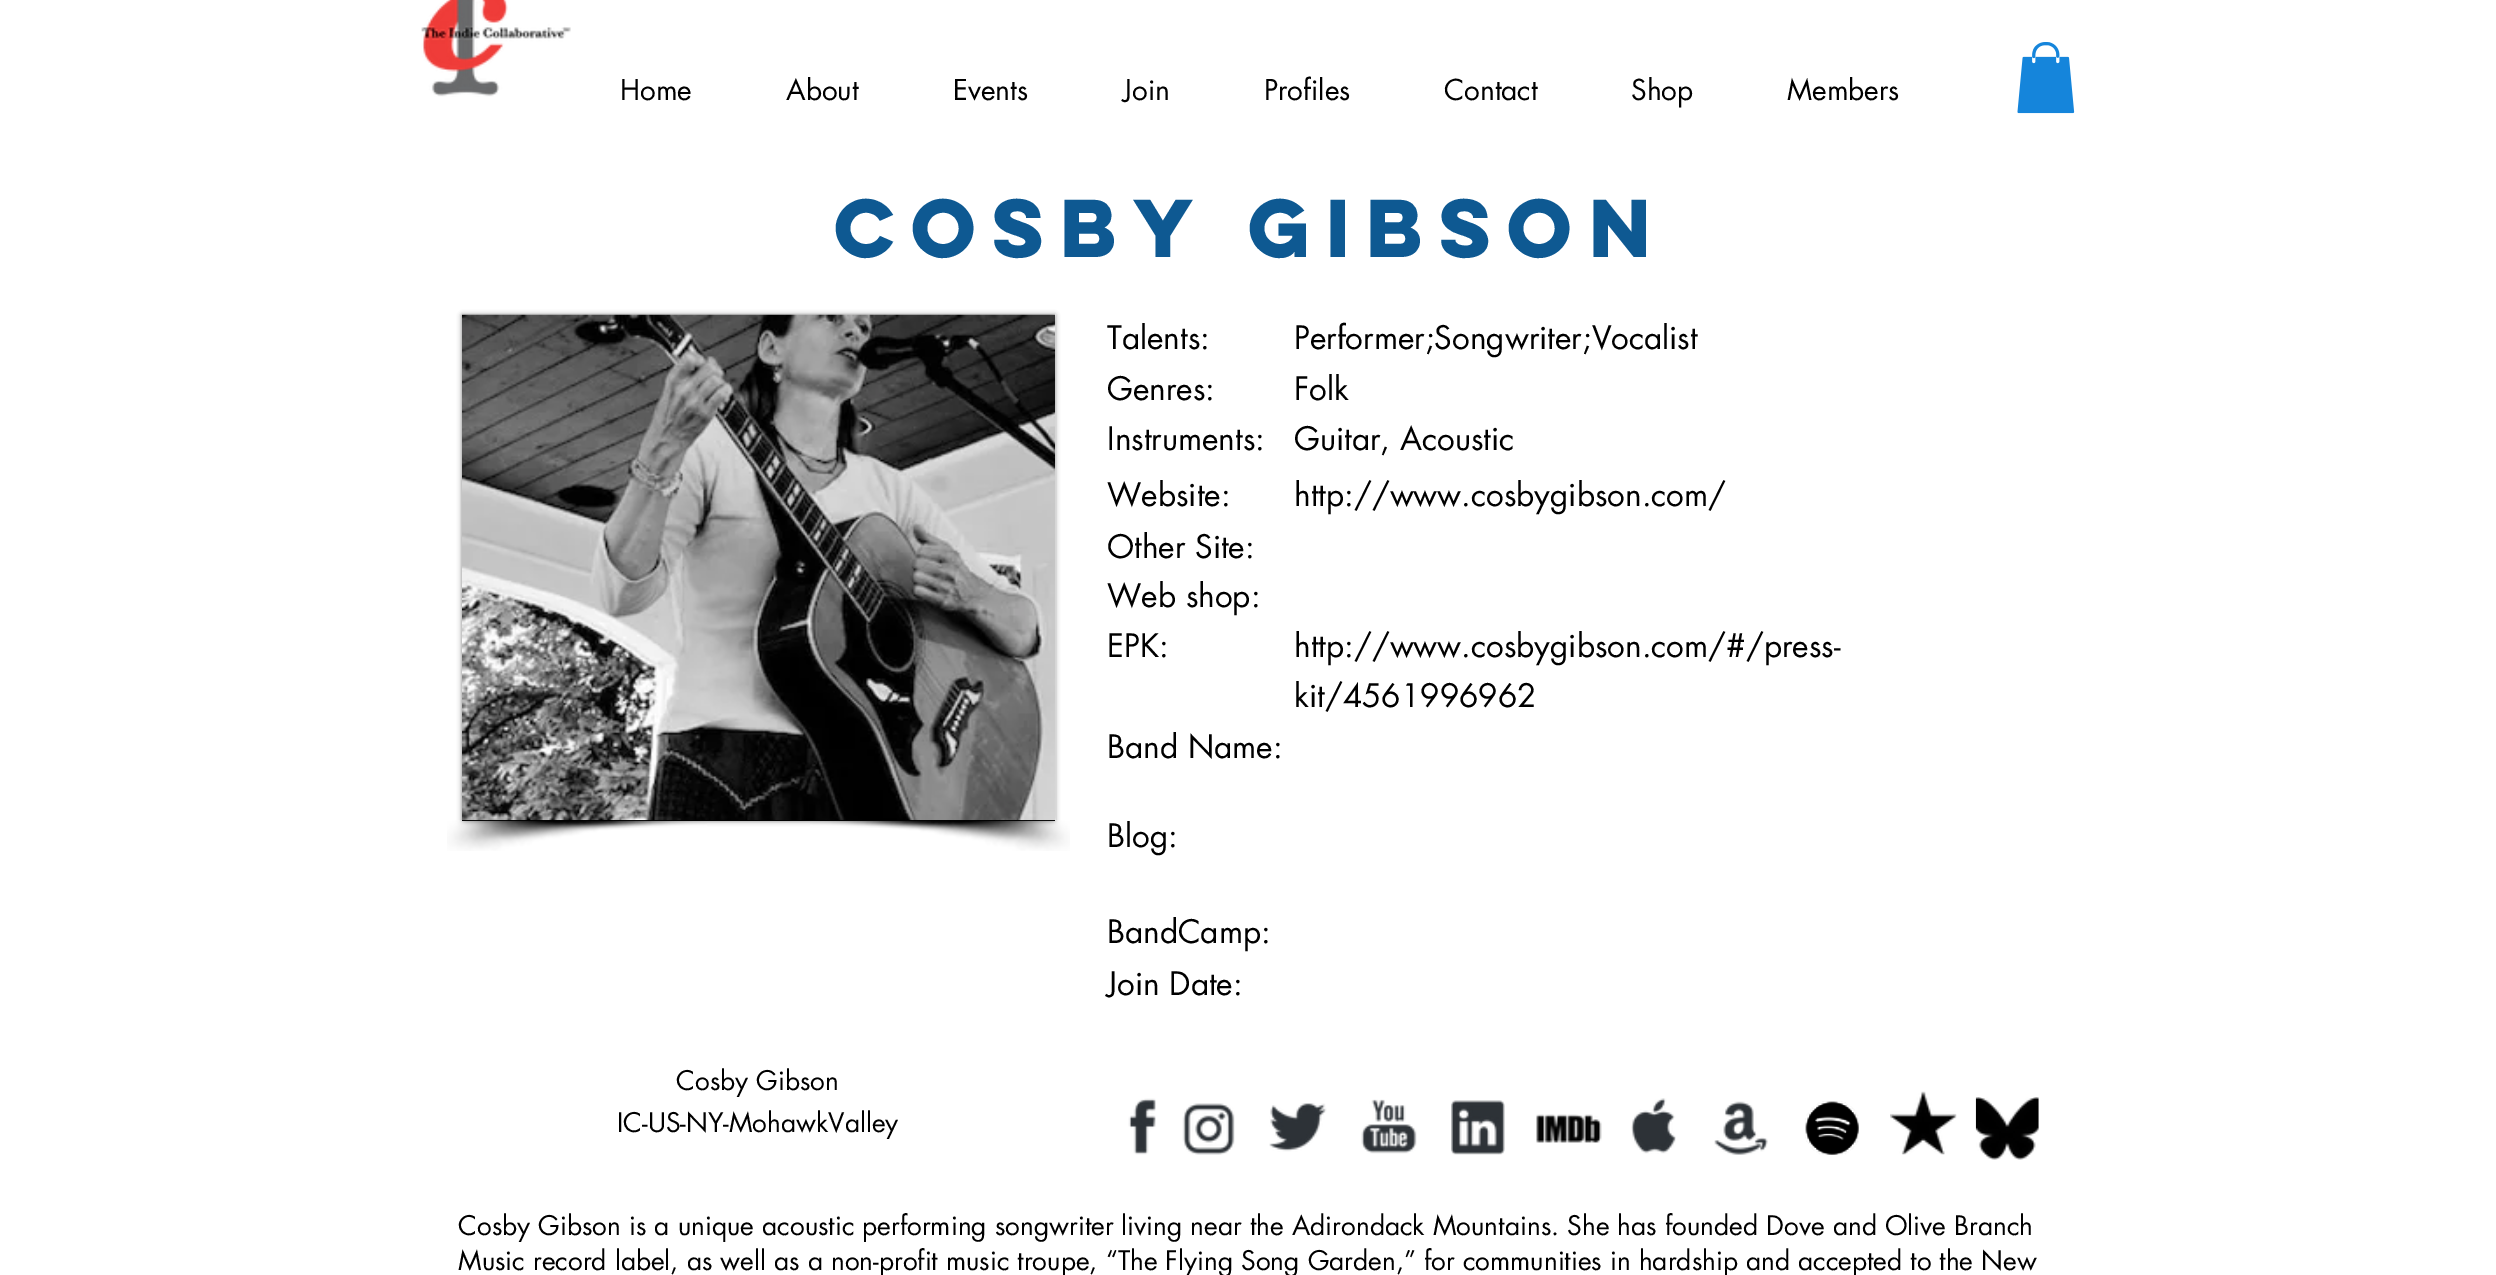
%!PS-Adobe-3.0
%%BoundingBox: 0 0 2496 1275
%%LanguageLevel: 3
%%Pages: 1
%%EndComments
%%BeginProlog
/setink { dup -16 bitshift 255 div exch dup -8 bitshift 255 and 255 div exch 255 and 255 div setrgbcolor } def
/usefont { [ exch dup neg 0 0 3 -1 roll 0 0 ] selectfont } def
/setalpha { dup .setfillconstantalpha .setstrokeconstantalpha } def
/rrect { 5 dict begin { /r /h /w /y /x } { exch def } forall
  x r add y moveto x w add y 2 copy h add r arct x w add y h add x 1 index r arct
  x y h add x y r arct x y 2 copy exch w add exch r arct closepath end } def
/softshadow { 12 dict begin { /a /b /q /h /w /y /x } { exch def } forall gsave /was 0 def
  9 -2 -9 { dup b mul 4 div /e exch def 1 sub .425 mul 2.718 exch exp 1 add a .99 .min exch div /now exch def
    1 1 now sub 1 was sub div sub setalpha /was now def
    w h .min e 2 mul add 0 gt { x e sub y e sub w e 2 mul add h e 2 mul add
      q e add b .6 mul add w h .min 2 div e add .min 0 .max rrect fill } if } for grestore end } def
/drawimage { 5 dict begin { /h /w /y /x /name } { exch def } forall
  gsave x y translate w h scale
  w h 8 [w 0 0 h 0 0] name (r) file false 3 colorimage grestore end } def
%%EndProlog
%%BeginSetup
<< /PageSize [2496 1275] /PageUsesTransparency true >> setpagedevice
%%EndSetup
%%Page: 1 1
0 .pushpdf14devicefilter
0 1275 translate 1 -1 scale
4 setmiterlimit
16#FFFFFF setink
0 0 2496 1275 rectfill
(img1.raw) 421 0 150 97 drawimage
/futura-Regular 28 usefont
16#000000 setink
[
    [(Home) 620 100]
    [(About) 786 100]
    [(Events) 953 100]
    [(Join) 1123 100]
    [(Profiles) 1264 100]
    [(Contact) 1444 100]
    [(Shop) 1631 100]
    [(Members) 1787 100]
] { aload pop moveto show } forall
(img2.raw) 2017 42 58 72 drawimage
/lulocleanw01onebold-Bold 73.5 usefont
16#0E5992 setink
834 257 moveto (Cosby Gibson) show
/futura-Regular 31.5 usefont
16#000000 setink
[
    [(Talents:) 1107 349]
    [(Performer;Songwriter;Vocalist) 1294 349]
    [(Genres:) 1107 400]
    [(Folk) 1294 400]
    [(Instruments:) 1107 450]
    [(Guitar, Acoustic) 1294 450]
    [(Website:) 1107 506]
    [(http://www.cosbygibson.com/) 1294 506]
    [(Other Site:) 1107 558]
    [(Web shop:) 1107 607]
    [(EPK:) 1107 657]
    [(http://www.cosbygibson.com/#/press-) 1294 657]
    [(kit/4561996962) 1294 707]
    [(Band Name:) 1107 758]
    [(Blog:) 1107 847]
    [(BandCamp:) 1107 943]
    [(Join Date:) 1107 995]
] { aload pop moveto show } forall
/futura-Regular 26.25 usefont
676 1090 moveto (Cosby Gibson) show
(img3.raw) 1128 1098 28 57 drawimage
(img4.raw) 1361 1099 56 55 drawimage
(img5.raw) 1451 1100 54 55 drawimage
(img6.raw) 1631 1098 45 56 drawimage
(img7.raw) 1714 1101 54 54 drawimage
(img8.raw) 1805 1101 54 54 drawimage
(img9.raw) 1890 1091 67 64 drawimage
(img10.raw) 1975 1097 64 63 drawimage
(img11.raw) 1805 1101 54 54 drawimage
(img12.raw) 1805 1101 54 54 drawimage
617 1132 moveto (IC-US-NY-MohawkValley) show
(img13.raw) 1182 1103 53 52 drawimage
(img14.raw) 1269 1103 58 49 drawimage
(img15.raw) 1536 1114 66 29 drawimage
(img16.raw) 1805 1101 54 54 drawimage
458 1235 moveto (Cosby Gibson is a unique acoustic performing songwriter living near the Adirondack Mountains. She has founded Dove and Olive Branch) show
458 1270 moveto (Music record label, as well as a non-profit music troupe, “The Flying Song Garden,” for communities in hardship and accepted to the New) show
462 315 593 506 0 2.5 0.5 softshadow
462 820 593 1 rectfill
(img17.raw) 462 314 594 507 drawimage
(img18.raw) 447 820 260 31 drawimage
(img19.raw) 810 820 260 31 drawimage
.poppdf14devicefilter showpage
%%EOF
